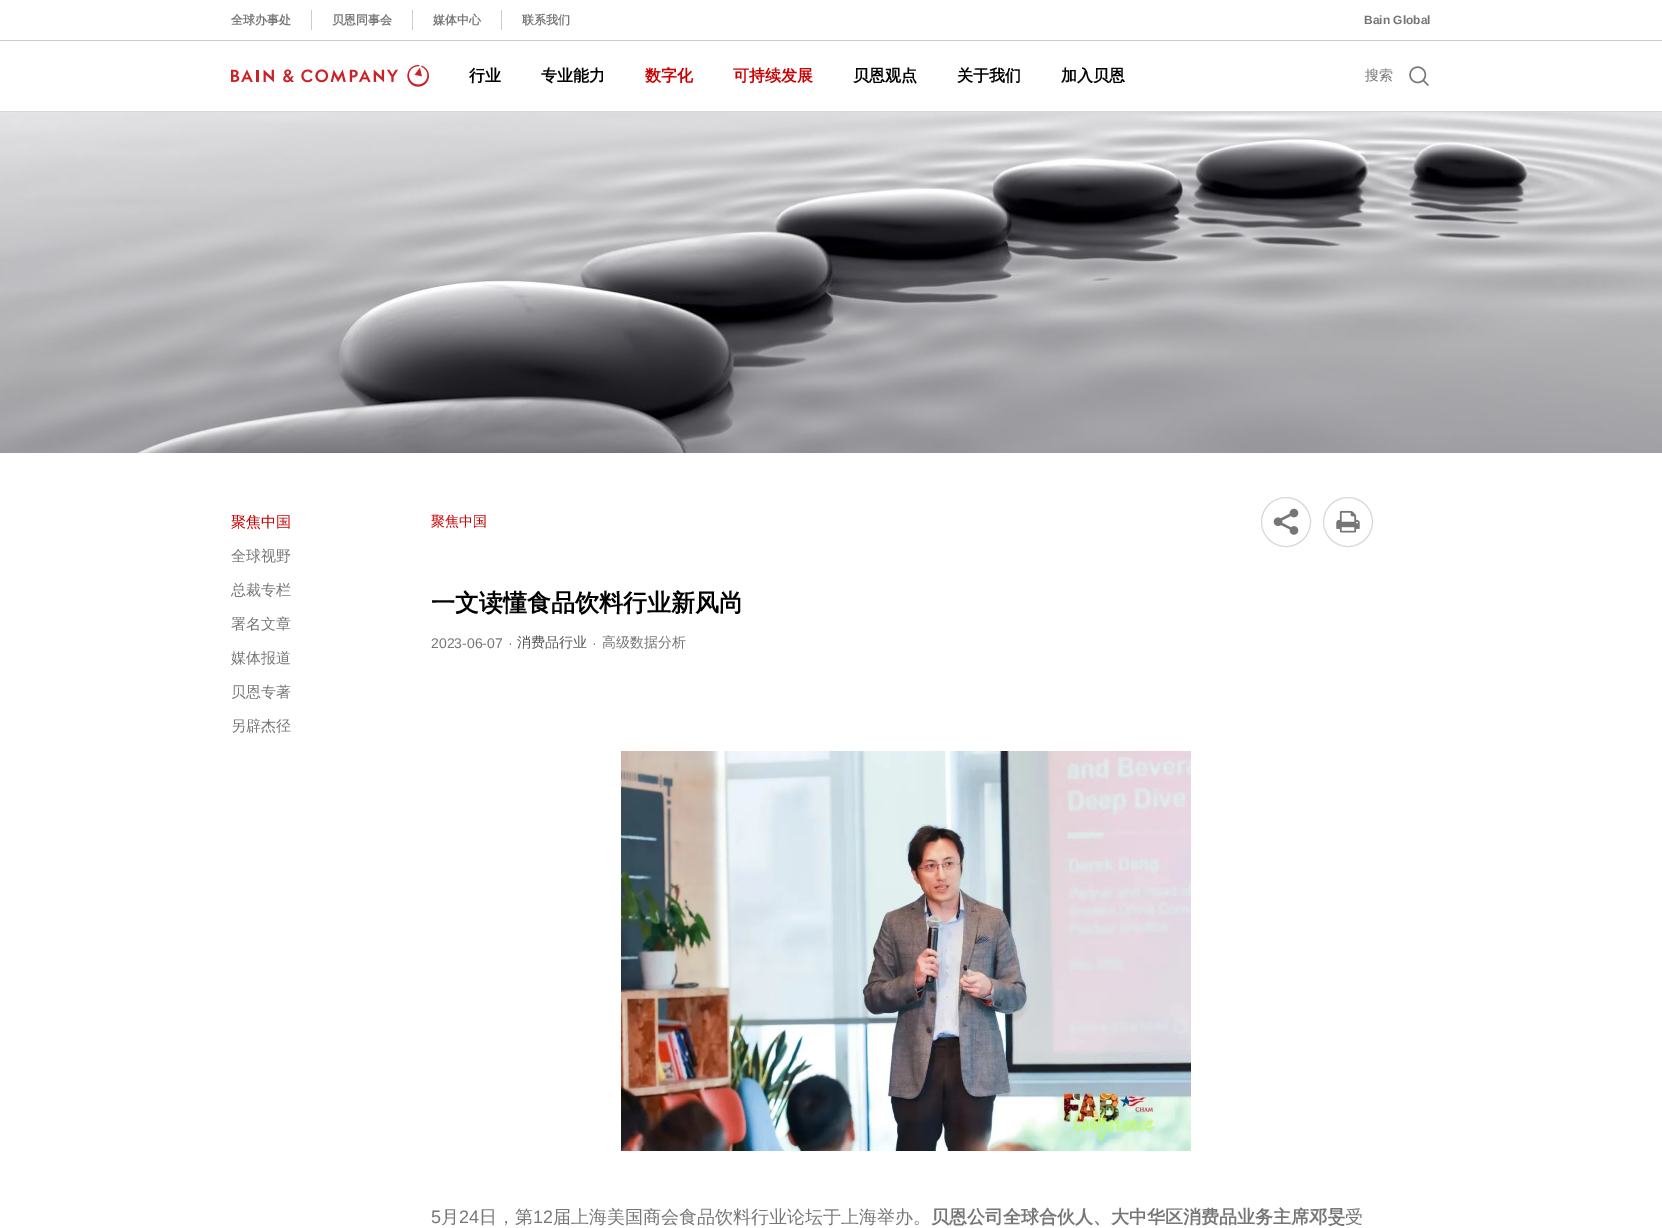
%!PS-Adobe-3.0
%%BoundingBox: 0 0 1662 1228
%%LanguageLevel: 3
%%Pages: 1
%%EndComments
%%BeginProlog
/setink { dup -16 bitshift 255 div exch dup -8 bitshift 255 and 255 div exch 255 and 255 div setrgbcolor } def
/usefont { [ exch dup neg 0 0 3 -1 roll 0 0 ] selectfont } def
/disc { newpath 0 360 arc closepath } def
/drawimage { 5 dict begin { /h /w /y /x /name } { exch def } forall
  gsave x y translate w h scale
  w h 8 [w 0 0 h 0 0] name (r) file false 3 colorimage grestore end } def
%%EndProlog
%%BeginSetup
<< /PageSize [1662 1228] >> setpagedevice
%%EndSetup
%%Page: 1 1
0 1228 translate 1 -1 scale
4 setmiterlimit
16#FFFFFF setink
0 0 1662 1228 rectfill
[
    [0 111 1662 1 16#D8D8D8]
    [0 40 1662 1 16#CCCCCC]
    [311 10 1 20 16#CCCCCC]
] { aload pop setink rectfill } forall
/WenQuanYiZenHei-Bold 12 usefont
16#767676 setink
231 24 moveto (全球办事处) show
16#CCCCCC setink
412 10 1 20 rectfill
16#767676 setink
332 24 moveto (贝恩同事会) show
16#CCCCCC setink
501 10 1 20 rectfill
16#767676 setink
433 24 moveto (媒体中心) show
522 24 moveto (联系我们) show
/LiberationSans-Bold 12 usefont
1364 24 moveto (Bain Global) show
(img1.raw) 231 65 198 22 drawimage
/WenQuanYiZenHei-Bold 16 usefont
16#000000 setink
469 81 moveto (行业) show
541 81 moveto (专业能力) show
16#CC0000 setink
645 81 moveto (数字化) show
733 81 moveto (可持续发展) show
16#000000 setink
[
    [(贝恩观点) 853 81]
    [(关于我们) 957 81]
    [(加入贝恩) 1061 81]
] { aload pop moveto show } forall
/WenQuanYiZenHei-Medium 14 usefont
16#767676 setink
1365 80 moveto (搜索) show
(img2.raw) 1409 66 20 20 drawimage
(img3.raw) 0 112 1662 341 drawimage
/WenQuanYiZenHei-Medium 15 usefont
16#CC0000 setink
231 527 moveto (聚焦中国) show
16#767676 setink
[
    [(全球视野) 231 561]
    [(总裁专栏) 231 595]
    [(署名文章) 231 629]
    [(媒体报道) 231 663]
    [(贝恩专著) 231 697]
    [(另辟杰径) 231 731]
] { aload pop moveto show } forall
/WenQuanYiZenHei-Medium 14 usefont
16#CC0000 setink
431 526 moveto (聚焦中国) show
16#D8D8D8 setink
1286 522 24.5 disc stroke
(img4.raw) 1273 508 26 27 drawimage
1348 522 24.5 disc stroke
(img5.raw) 1336 510 24 23 drawimage
/WenQuanYiZenHei-Bold 24 usefont
16#000000 setink
431 611 moveto (一文读懂食品饮料行业新风尚) show
/LiberationSans-Regular 14 usefont
16#767676 setink
431 648 moveto (2023-06-07) show
508 648 moveto (·) show
/WenQuanYiZenHei-Medium 14 usefont
16#555555 setink
517 647 moveto (消费品行业) show
/LiberationSans-Regular 14 usefont
16#767676 setink
592 648 moveto (·) show
/WenQuanYiZenHei-Medium 14 usefont
602 647 moveto (高级数据分析) show
(img6.raw) 621 751 570 400 drawimage
/LiberationSans-Regular 18 usefont
431 1223 moveto (5) show
/WenQuanYiZenHei-Medium 18 usefont
441 1223 moveto (月) show
/LiberationSans-Regular 18 usefont
459 1223 moveto (24) show
/WenQuanYiZenHei-Medium 18 usefont
479 1223 moveto (日，第) show
/LiberationSans-Regular 18 usefont
533 1223 moveto (12) show
/WenQuanYiZenHei-Medium 18 usefont
553 1223 moveto (届上海美国商会食品饮料行业论坛于上海举办。) show
/WenQuanYiZenHei-Bold 18 usefont
931 1223 moveto (贝恩公司全球合伙人、大中华区消费品业务主席邓旻) show
/WenQuanYiZenHei-Medium 18 usefont
1345 1223 moveto (受) show
showpage
%%EOF
